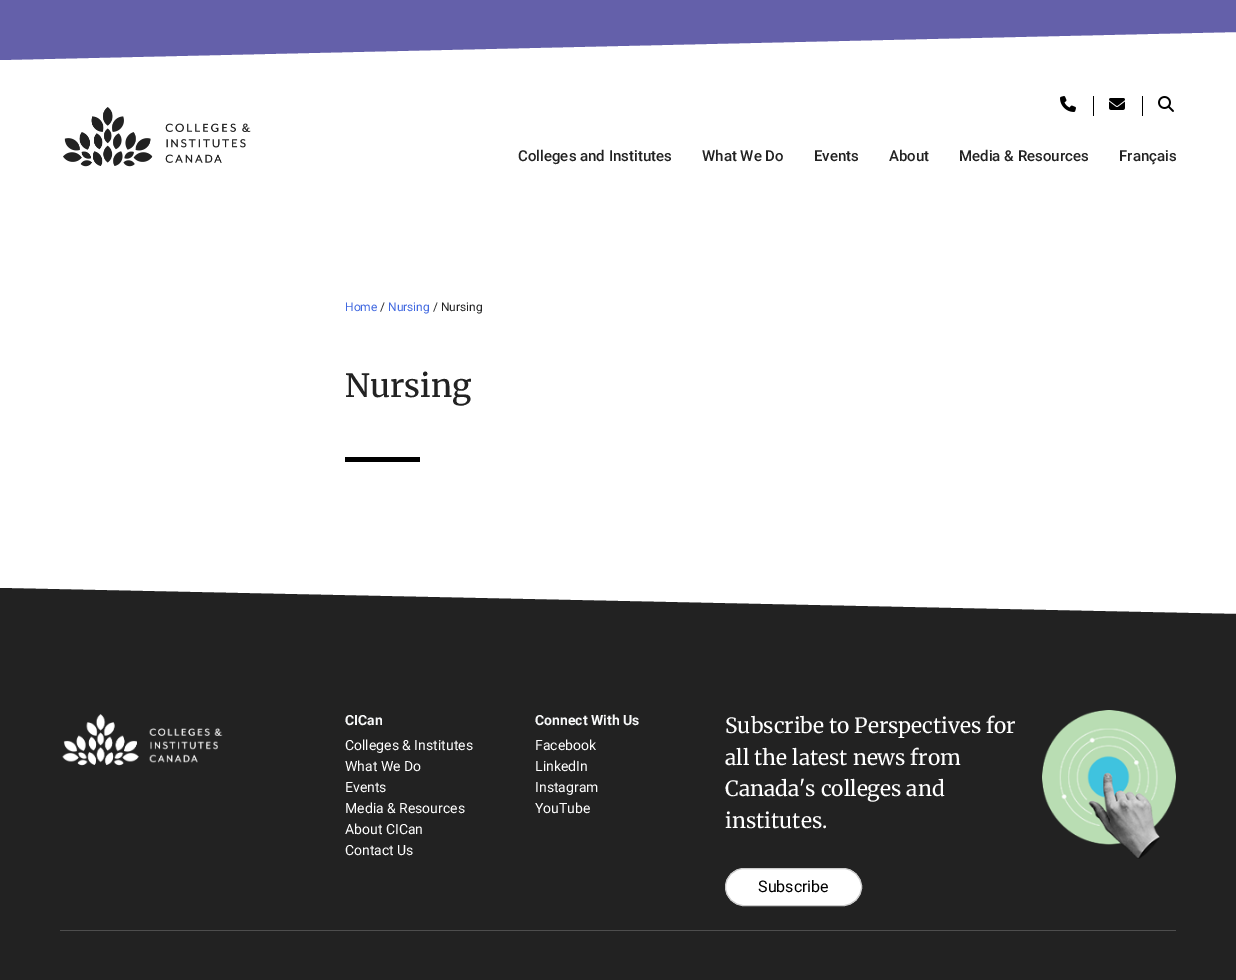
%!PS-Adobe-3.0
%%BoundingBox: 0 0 1236 980
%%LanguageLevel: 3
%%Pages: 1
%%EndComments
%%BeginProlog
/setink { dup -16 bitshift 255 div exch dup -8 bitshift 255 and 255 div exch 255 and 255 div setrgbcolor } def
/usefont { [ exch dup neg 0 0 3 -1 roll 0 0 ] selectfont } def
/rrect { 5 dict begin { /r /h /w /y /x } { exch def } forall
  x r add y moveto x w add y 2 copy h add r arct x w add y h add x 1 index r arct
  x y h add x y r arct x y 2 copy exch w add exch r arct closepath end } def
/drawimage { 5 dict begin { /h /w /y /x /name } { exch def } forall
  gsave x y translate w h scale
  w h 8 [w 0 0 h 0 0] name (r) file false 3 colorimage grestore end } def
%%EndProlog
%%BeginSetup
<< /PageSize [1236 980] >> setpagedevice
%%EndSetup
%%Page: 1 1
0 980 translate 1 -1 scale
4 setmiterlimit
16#FFFFFF setink
0 0 1236 980 rectfill
16#6460AA setink
0 -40 moveto 1236 -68 lineto 1236 32 lineto 0 60 lineto closepath fill
(img1.raw) 63 107 188 60 drawimage
16#000000 setink
1093 96 1 20 rectfill
(img2.raw) 1060 96 16 16 drawimage
1142 96 1 20 rectfill
(img3.raw) 1109 98 16 12 drawimage
(img4.raw) 1158 96 16 16 drawimage
/Roboto-Medium 15 usefont
16#222222 setink
[
    [(Colleges and Institutes) 518 161]
    [(What We Do) 702 161]
    [(Events) 814 161]
    [(About) 889 161]
    [(Media & Resources) 959 161]
    [(Français) 1119 161]
] { aload pop moveto show } forall
/Roboto-Regular 12 usefont
16#4169E1 setink
345 311 moveto (Home) show
16#222222 setink
380 311 moveto (/) show
16#4169E1 setink
388 311 moveto (Nursing) show
16#222222 setink
433 311 moveto (/ Nursing) show
/Merriweather-Medium 32 usefont
345 397 moveto (Nursing) show
16#000000 setink
345 457 75 5 rectfill
16#222222 setink
0 588 moveto 1236 614 lineto 1236 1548 lineto 0 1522 lineto closepath fill
(img5.raw) 62 714 161 52 drawimage
/Roboto-Bold 14 usefont
16#F8F9FA setink
345 725 moveto (CICan) show
/Roboto-Regular 14 usefont
16#FFFFFF setink
[
    [(Colleges & Institutes) 345 750]
    [(What We Do) 345 771]
    [(Events) 345 792]
    [(Media & Resources) 345 813]
    [(About CICan) 345 834]
    [(Contact Us) 345 855]
] { aload pop moveto show } forall
/Roboto-Bold 14 usefont
16#F8F9FA setink
535 725 moveto (Connect With Us) show
/Roboto-Regular 14 usefont
16#FFFFFF setink
[
    [(Facebook) 535 750]
    [(LinkedIn) 535 771]
    [(Instagram) 535 792]
    [(YouTube) 535 813]
] { aload pop moveto show } forall
/Merriweather-Regular 21 usefont
[
    [(Subscribe to Perspectives for) 725 733]
    [(all the latest news from) 725 765]
    [(Canada's colleges and) 725 796]
    [(institutes.) 725 828]
] { aload pop moveto show } forall
725.5 868.5 136 37 18.5 rrect gsave fill grestore
16#CCCCCC setink
stroke
/Roboto-Regular 16 usefont
16#000000 setink
758 892 moveto (Subscribe) show
(img6.raw) 1042 710 134 149 drawimage
16#4E4E4E setink
60 930 1116 1 rectfill
showpage
%%EOF
